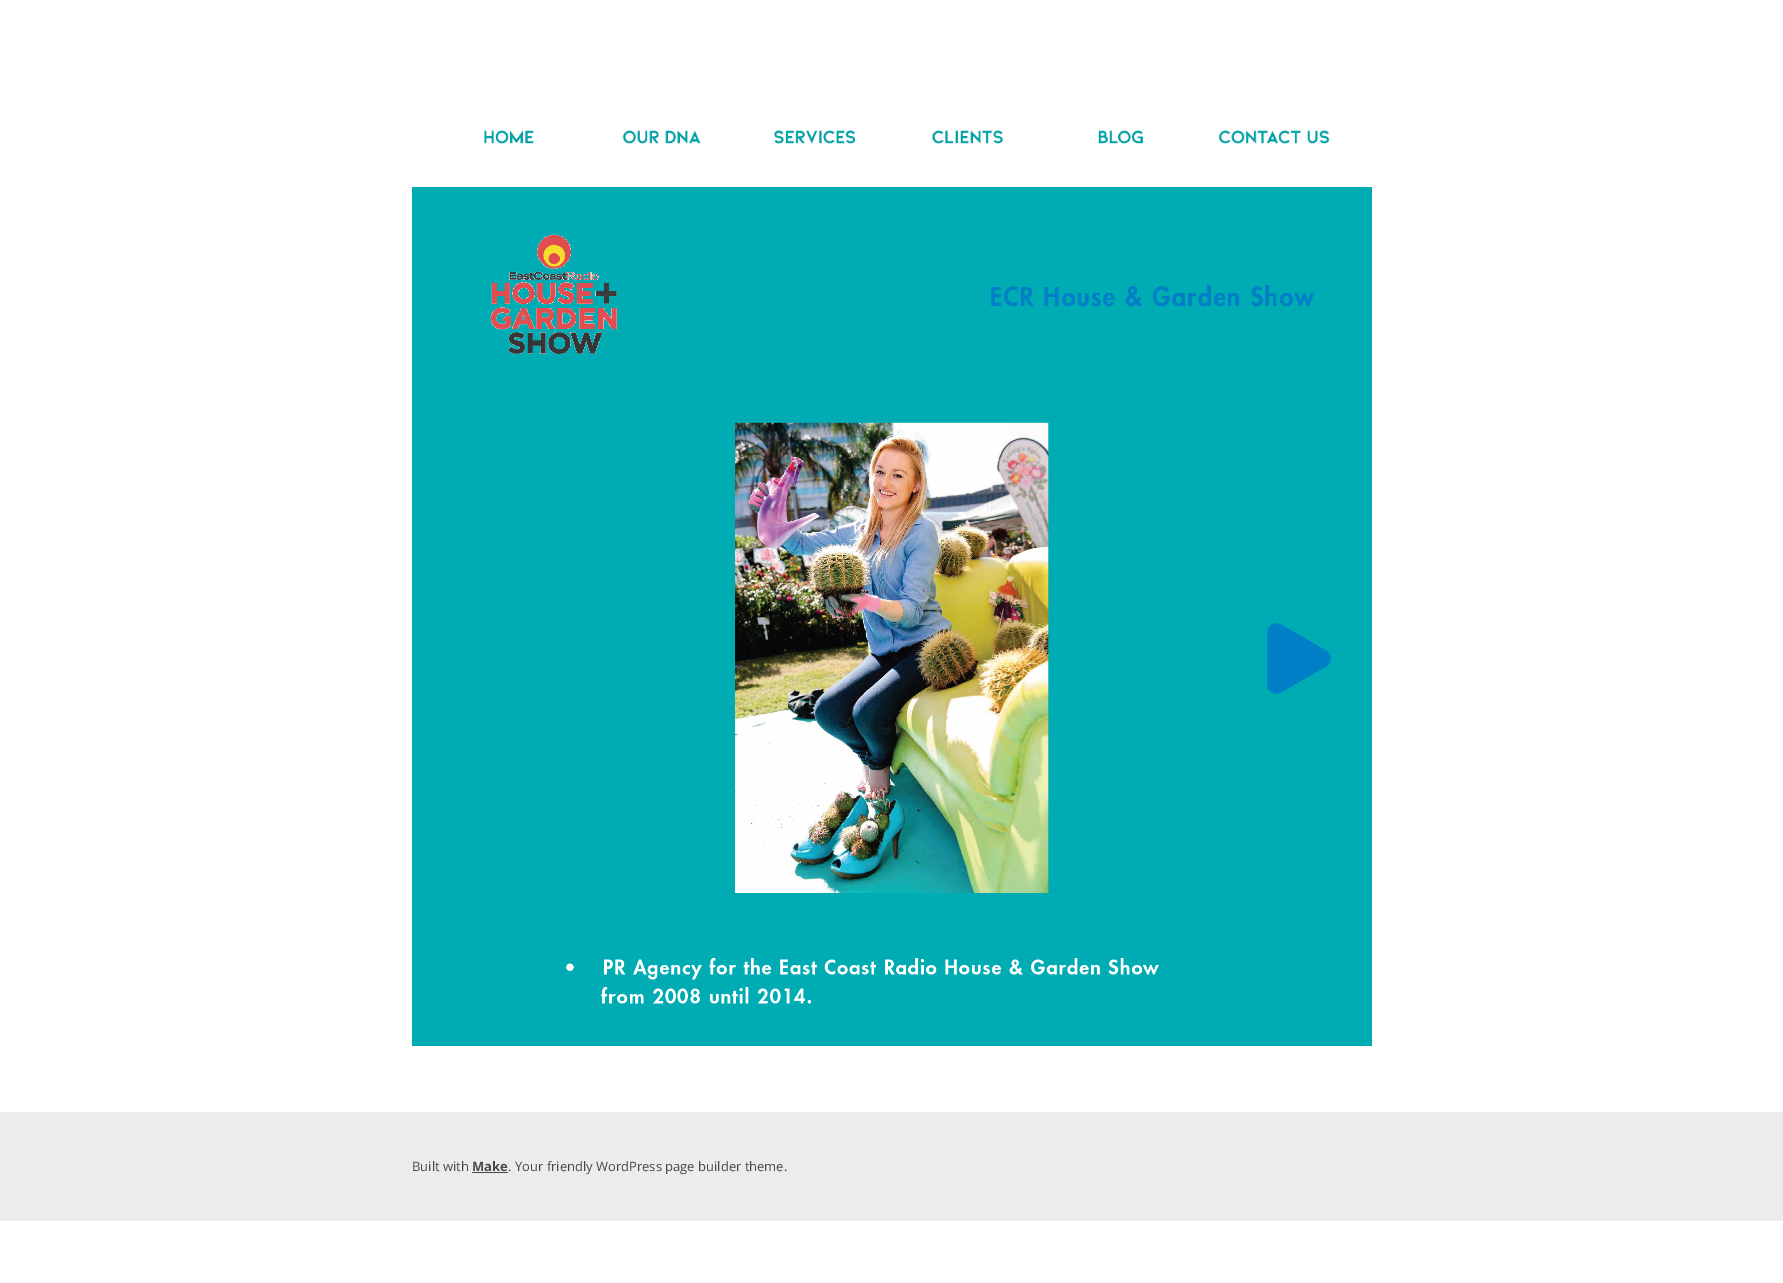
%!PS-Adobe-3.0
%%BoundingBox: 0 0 1783 1283
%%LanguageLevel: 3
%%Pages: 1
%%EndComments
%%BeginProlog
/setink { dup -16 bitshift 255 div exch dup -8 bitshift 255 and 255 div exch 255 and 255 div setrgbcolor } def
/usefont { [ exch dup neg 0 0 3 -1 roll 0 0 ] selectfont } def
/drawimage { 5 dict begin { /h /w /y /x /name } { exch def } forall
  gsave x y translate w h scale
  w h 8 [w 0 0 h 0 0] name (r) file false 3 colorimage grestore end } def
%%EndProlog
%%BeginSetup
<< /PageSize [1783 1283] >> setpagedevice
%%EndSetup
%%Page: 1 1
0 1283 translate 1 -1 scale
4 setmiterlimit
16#FFFFFF setink
0 0 1783 1283 rectfill
(img1.raw) 484 130 50 14 drawimage
(img2.raw) 622 130 79 14 drawimage
(img3.raw) 774 130 82 14 drawimage
(img4.raw) 932 130 72 14 drawimage
(img5.raw) 1098 130 46 14 drawimage
(img6.raw) 1218 130 112 14 drawimage
16#00ACB3 setink
412 187 960 859 rectfill
(img7.raw) 490 234 825 120 drawimage
(img8.raw) 735 422 596 471 drawimage
(img9.raw) 566 958 593 46 drawimage
16#EAECEE setink
0 1112 1783 109 rectfill
/OpenSans-Regular 13 usefont
16#464849 setink
412 1171 moveto (Built with) show
/OpenSans-Bold 13 usefont
472 1171 moveto (Make) show
472 1172 36 1 rectfill
/OpenSans-Regular 13 usefont
508 1171 moveto (. Your friendly WordPress page builder theme.) show
showpage
%%EOF
